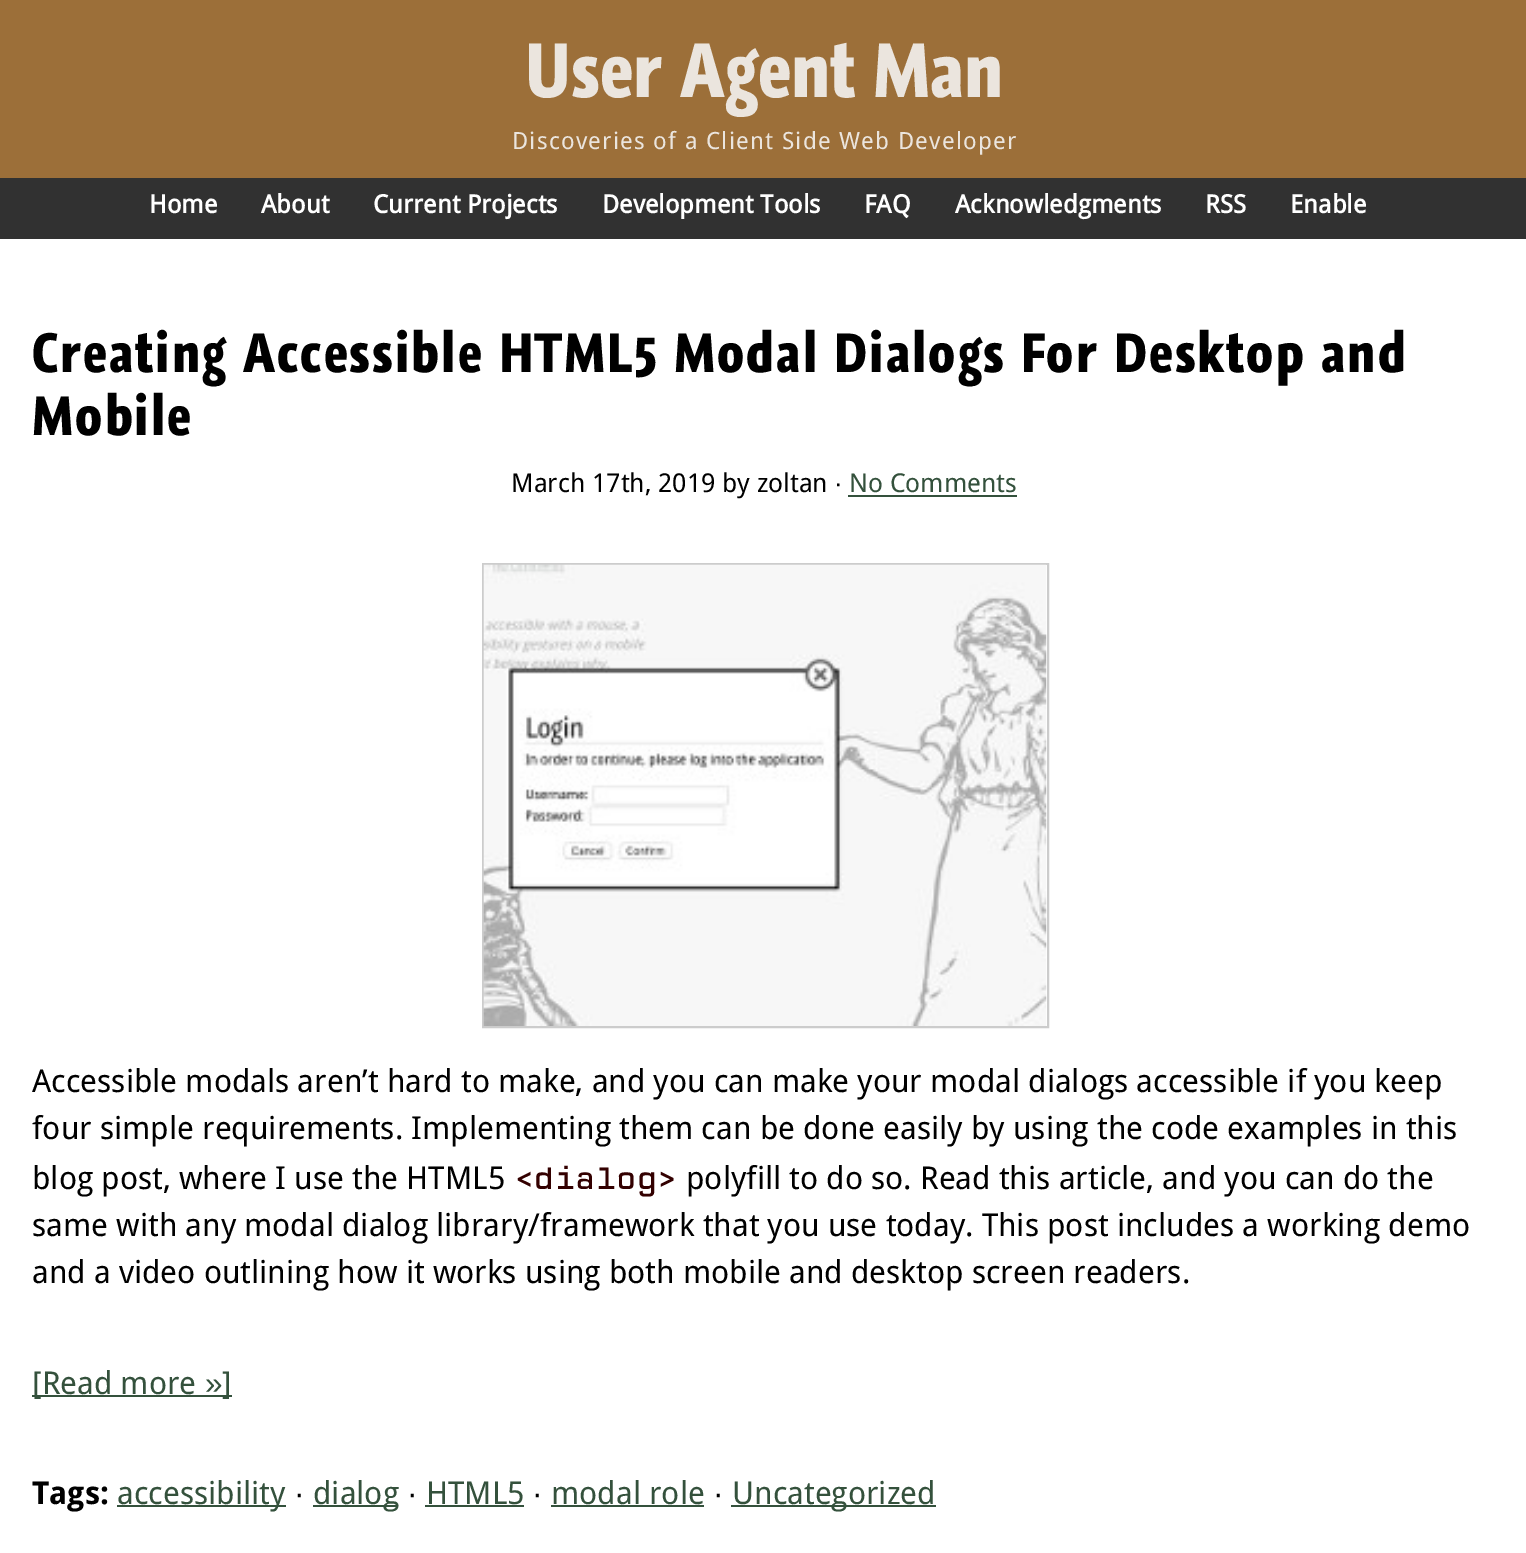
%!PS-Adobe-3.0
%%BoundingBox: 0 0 1526 1553
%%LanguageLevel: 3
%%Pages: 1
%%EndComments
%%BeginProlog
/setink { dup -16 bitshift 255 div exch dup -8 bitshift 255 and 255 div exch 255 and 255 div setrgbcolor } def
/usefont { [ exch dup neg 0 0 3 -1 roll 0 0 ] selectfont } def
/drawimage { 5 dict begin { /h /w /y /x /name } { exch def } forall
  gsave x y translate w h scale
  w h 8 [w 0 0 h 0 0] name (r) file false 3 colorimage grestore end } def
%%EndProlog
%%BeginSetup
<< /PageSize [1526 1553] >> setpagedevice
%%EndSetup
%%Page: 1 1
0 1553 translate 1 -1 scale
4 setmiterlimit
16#9C6F39 setink
0 0 1526 1553 rectfill
/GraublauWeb-Bold 72 usefont
16#EBE5DE setink
525 97 moveto (User Agent Man) show
/DroidSans-Regular 23.75 usefont
512 149 moveto 1.2 0 (Discoveries of a Client Side Web Developer) ashow
16#313131 setink
0 178 1526 61 rectfill
/DroidSans-Bold 25.25 usefont
16#FFFFFF setink
[
    [(Home) 149 213]
    [(About) 261 213]
    [(Current Projects) 373 213]
    [(Development Tools) 602 213]
    [(FAQ) 864 213]
    [(Acknowledgments) 955 213]
    [(RSS) 1205 213]
    [(Enable) 1290 213]
] { aload pop moveto show } forall
0 239 1526 1314 rectfill
/GraublauWeb-Bold 51.85 usefont
16#000000 setink
32 372 moveto 2.07 0 (Creating Accessible HTML5 Modal Dialogs For Desktop and) ashow
32 435 moveto 2.07 0 (Mobile) ashow
/DroidSans-Regular 26 usefont
511 492 moveto (March 17th, 2019 by zoltan) show
/LiberationSans-Regular 26 usefont
834 492 moveto (·) show
/DroidSans-Regular 26 usefont
16#34513C setink
849 492 moveto (No Comments) show
848 495 169 2 rectfill
16#CCCCCC setink
2 setlinewidth
483 564 565 463 rectstroke
(img1.raw) 483 564 564 462 drawimage
/DroidSans-Regular 31.5 usefont
16#000000 setink
[
    [(Accessible modals aren’t hard to make, and you can make your modal dialogs accessible if you keep) 32 1092]
    [(four simple requirements. Implementing them can be done easily by using the code examples in this) 32 1139]
    [(blog post, where I use the HTML5) 32 1189]
] { aload pop moveto show } forall
/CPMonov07-Light 31.5 usefont
16#330000 setink
514 1189 moveto (<dialog>) show
/DroidSans-Regular 31.5 usefont
16#000000 setink
[
    [(polyfill to do so. Read this article, and you can do the) 686 1189]
    [(same with any modal dialog library/framework that you use today. This post includes a working demo) 32 1236]
    [(and a video outlining how it works using both mobile and desktop screen readers.) 32 1283]
] { aload pop moveto show } forall
16#34513C setink
32 1395 200 2 rectfill
32 1394 moveto ([Read more) show
/LiberationSans-Regular 31.5 usefont
205 1394 moveto (») show
/DroidSans-Regular 31.5 usefont
222 1394 moveto (]) show
/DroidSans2-Bold 31.5 usefont
16#000000 setink
32 1504 moveto (Tags:) show
16#34513C setink
117 1505 169 2 rectfill
/DroidSans-Regular 31.5 usefont
117 1504 moveto (accessibility) show
/LiberationSans-Regular 31.5 usefont
16#000000 setink
294 1504 moveto (·) show
16#34513C setink
313 1505 85 2 rectfill
/DroidSans-Regular 31.5 usefont
313 1504 moveto (dialog) show
/LiberationSans-Regular 31.5 usefont
16#000000 setink
407 1504 moveto (·) show
/DroidSans-Regular 31.5 usefont
16#34513C setink
426 1504 moveto (HTML5) show
425 1505 99 2 rectfill
/LiberationSans-Regular 31.5 usefont
16#000000 setink
532 1504 moveto (·) show
/DroidSans-Regular 31.5 usefont
16#34513C setink
551 1504 moveto (modal role) show
551 1505 153 2 rectfill
/LiberationSans-Regular 31.5 usefont
16#000000 setink
713 1504 moveto (·) show
16#34513C setink
731 1505 205 2 rectfill
/DroidSans-Regular 31.5 usefont
732 1504 moveto (Uncategorized) show
showpage
%%EOF
